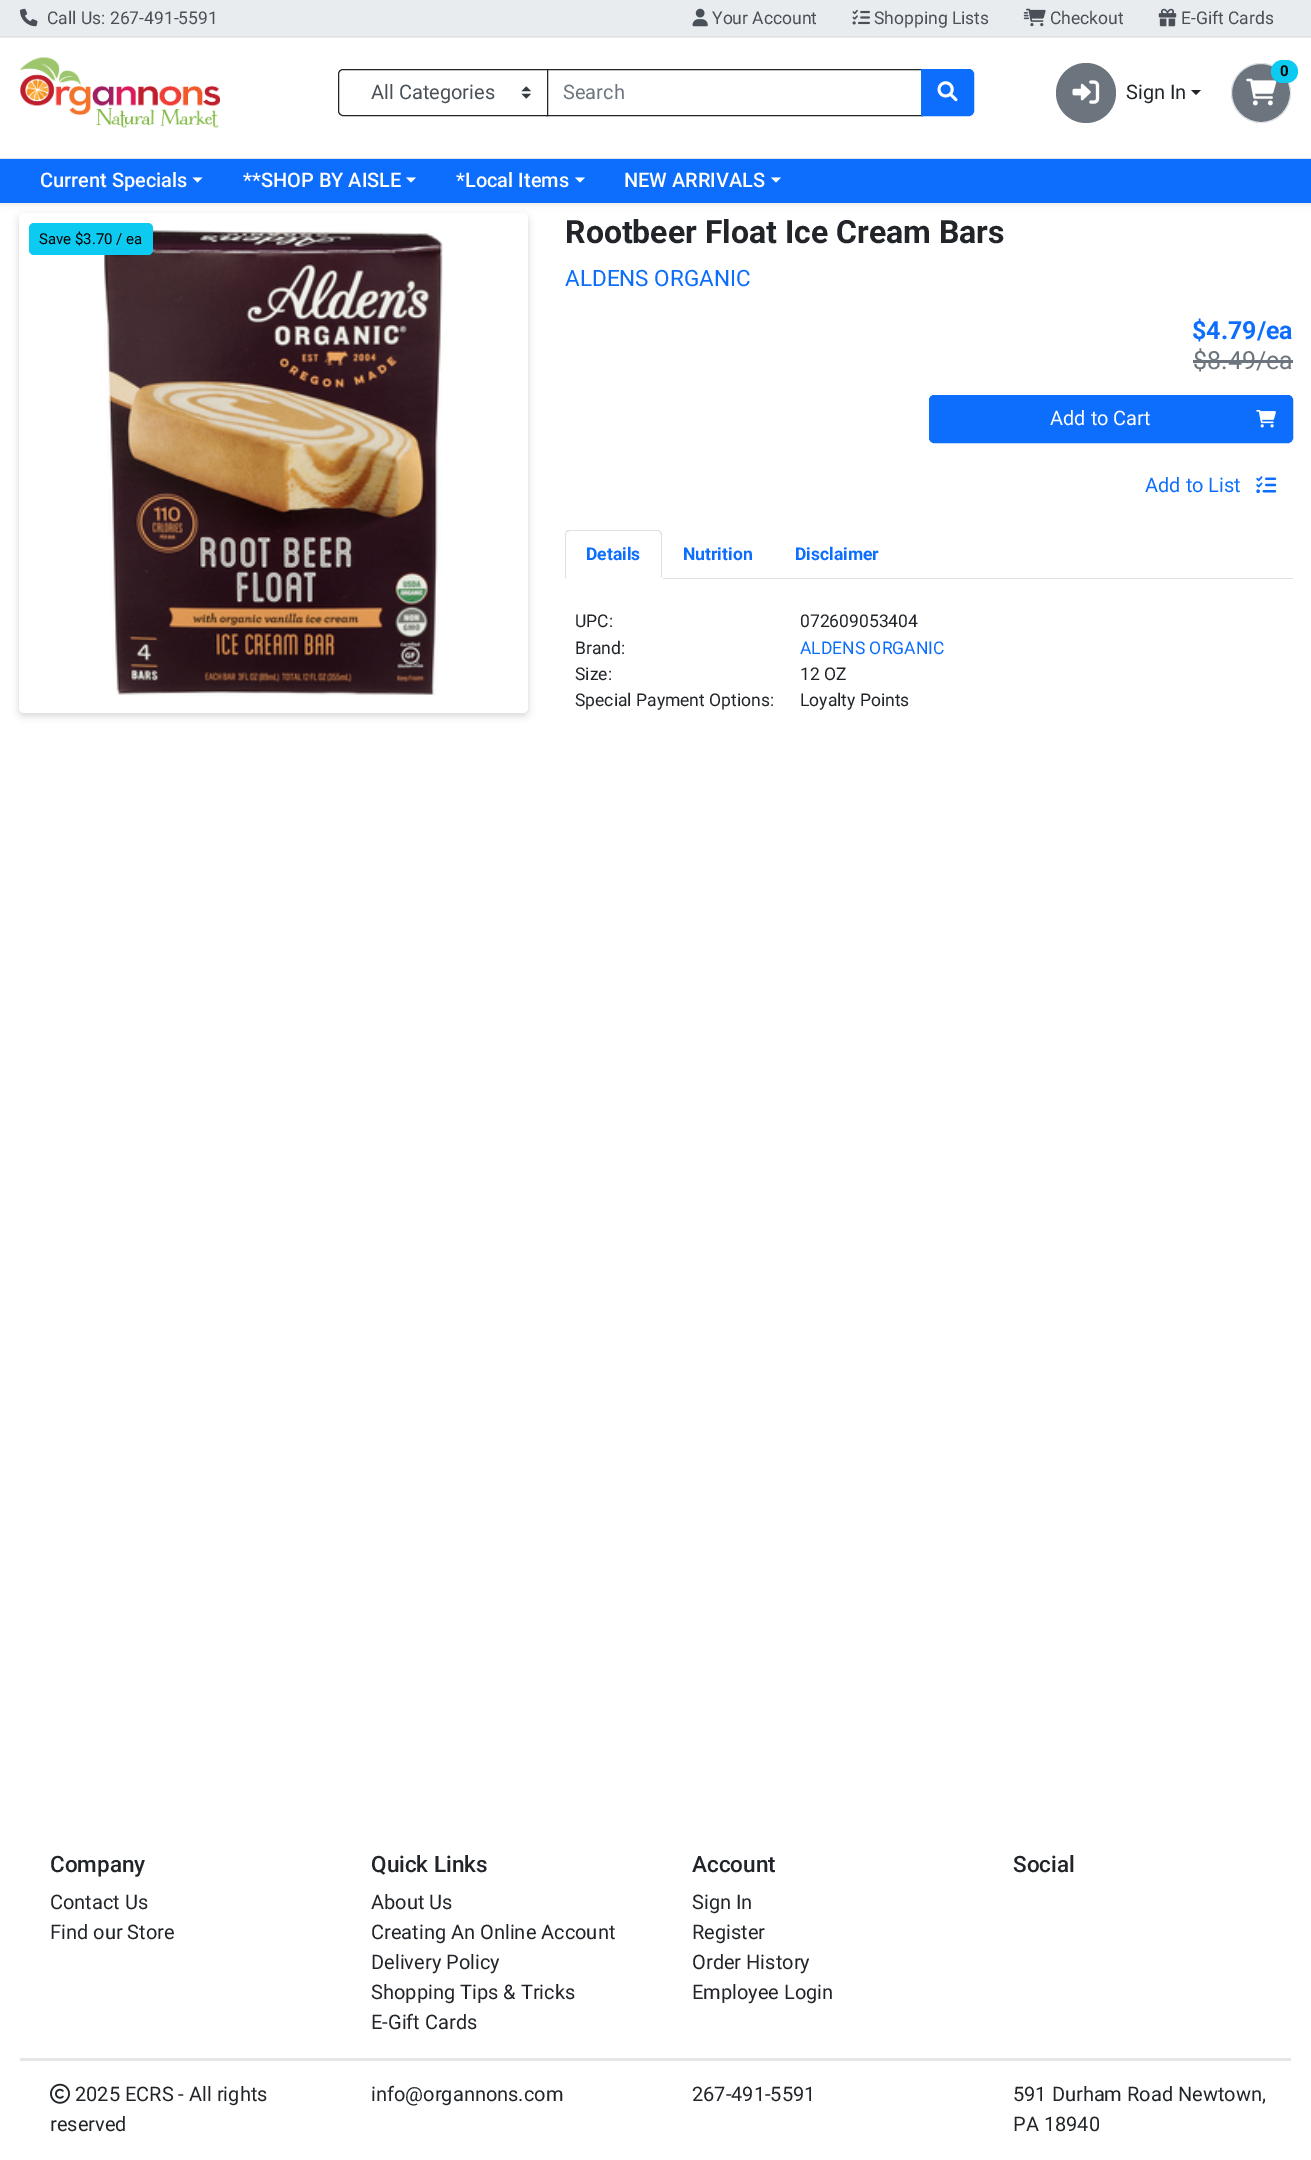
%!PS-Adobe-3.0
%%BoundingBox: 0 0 1311 2160
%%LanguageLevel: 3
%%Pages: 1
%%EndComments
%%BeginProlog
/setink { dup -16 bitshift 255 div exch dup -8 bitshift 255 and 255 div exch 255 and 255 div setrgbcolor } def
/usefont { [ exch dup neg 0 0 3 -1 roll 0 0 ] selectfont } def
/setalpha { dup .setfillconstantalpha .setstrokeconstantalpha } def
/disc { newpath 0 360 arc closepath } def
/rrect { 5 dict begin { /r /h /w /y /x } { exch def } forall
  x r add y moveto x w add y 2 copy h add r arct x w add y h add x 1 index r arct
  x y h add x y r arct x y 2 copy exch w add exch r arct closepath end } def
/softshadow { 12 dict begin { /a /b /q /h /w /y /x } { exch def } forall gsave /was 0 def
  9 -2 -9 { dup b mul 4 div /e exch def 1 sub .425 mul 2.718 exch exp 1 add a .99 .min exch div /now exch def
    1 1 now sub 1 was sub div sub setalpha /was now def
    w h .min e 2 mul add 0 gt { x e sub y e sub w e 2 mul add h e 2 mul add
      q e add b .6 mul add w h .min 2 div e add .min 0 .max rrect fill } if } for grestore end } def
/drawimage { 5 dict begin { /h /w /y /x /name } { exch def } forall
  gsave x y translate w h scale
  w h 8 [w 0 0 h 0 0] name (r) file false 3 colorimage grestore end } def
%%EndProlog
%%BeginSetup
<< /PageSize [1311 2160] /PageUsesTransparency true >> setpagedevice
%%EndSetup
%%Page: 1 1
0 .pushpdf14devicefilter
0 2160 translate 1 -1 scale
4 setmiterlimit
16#FFFFFF setink
0 0 1311 2160 rectfill
16#000000 setink
19 216 509 500 5 4 0.16 softshadow
16#FFFFFF setink
19 213 509 500 5 rrect fill
16#000000 setink
0 3 1311 202 0 2.5 0.07 softshadow
[
    [0 38 1311 120 16#FFFFFF]
    [0 0 1311 38 16#E9ECEF]
    [0 36 1311 1 16#DEE2E6]
] { aload pop setink rectfill } forall
(img1.raw) 20 8 18 19 drawimage
/Roboto-Regular 17.5 usefont
16#495057 setink
47 24 moveto (Call Us: 267-491-5591) show
(img2.raw) 692 8 16 19 drawimage
712 24 moveto (Your Account) show
(img3.raw) 852 9 18 16 drawimage
874 24 moveto (Shopping Lists) show
(img4.raw) 1023 8 23 19 drawimage
1050 24 moveto (Checkout) show
(img5.raw) 1158 8 19 19 drawimage
1181 24 moveto (E-Gift Cards) show
16#DEE2E6 setink
0 158 1311 1 rectfill
(img6.raw) 20 57 200 71 drawimage
16#212529 setink
546.5 69.5 376 46 rectstroke
16#FFFFFF setink
343 69 moveto 548 69 lineto 548 116 lineto 343 116 lineto 340 116 338 114 338 111 curveto 338 74 lineto 338 71 340 69 343 69 curveto closepath fill
(img7.raw) 521 86 10 13 drawimage
16#212529 setink
343 69.5 moveto 547.5 69.5 lineto 547.5 115.5 lineto 343 115.5 lineto 340.5 115.5 338.5 113.5 338.5 111 curveto 338.5 74 lineto 338.5 71.5 340.5 69.5 343 69.5 curveto closepath stroke
/Roboto-Regular 20 usefont
16#495057 setink
371 99 moveto (All Categories) show
16#6C757D setink
563 99 moveto (Search) show
16#0D6EFD setink
921.5 69.5 moveto 969 69.5 lineto 971.5 69.5 973.5 71.5 973.5 74 curveto 973.5 111 lineto 973.5 113.5 971.5 115.5 969 115.5 curveto 921.5 115.5 lineto closepath gsave fill grestore
stroke
(img8.raw) 937 81 21 21 drawimage
16#6C757D setink
1261 93 29.5 disc gsave fill grestore
16#DEE2E6 setink
stroke
(img9.raw) 1246 78 31 28 drawimage
16#0DCAF0 setink
1271 60 27 23 11.5 rrect fill
/Roboto-Bold 15 usefont
16#000000 setink
1280 76 moveto (0) show
16#6C757D setink
1086 93 30 disc fill
(img10.raw) 1072 80 28 24 drawimage
/Roboto-Regular 20 usefont
16#212529 setink
1126 99 moveto (Sign In) show
1191 90 moveto 1201 90 lineto 1196 95 lineto closepath fill
16#0D6EFD setink
0 159 1311 44 rectfill
/Roboto-Medium 20 usefont
16#FFFFFF setink
40 187 moveto (Current Specials) show
192.5 177.5 moveto 202.5 177.5 lineto 197.5 182.5 lineto closepath fill
243 187 moveto (**SHOP BY AISLE) show
406 177.5 moveto 416 177.5 lineto 411 182.5 lineto closepath fill
456 187 moveto (*Local Items) show
575 177.5 moveto 585 177.5 lineto 580 182.5 lineto closepath fill
624 187 moveto (NEW ARRIVALS) show
771 177.5 moveto 781 177.5 lineto 776 182.5 lineto closepath fill
(img11.raw) 104 230 339 466 drawimage
16#0DCAF0 setink
29 223 124 32 5 rrect fill
/Roboto-Regular 15 usefont
16#000000 setink
39 244 moveto (Save $3.70 / ea) show
/Roboto-Bold 32 usefont
16#212529 setink
565 243 moveto (Rootbeer Float Ice Cream Bars) show
/Roboto-Regular 22.5 usefont
16#0D6EFD setink
565 286 moveto (ALDENS ORGANIC) show
/Roboto-Bold 25 usefont
1192 339 moveto ($4.79/ea) show
/Roboto-Regular 25 usefont
16#6C757D setink
1193 369 moveto ($8.49/ea) show
1193 360 100 3 rectfill
16#0D6EFD setink
929.5 395.5 363 47 4.5 rrect gsave fill grestore
stroke
/Roboto-Regular 20 usefont
16#FFFFFF setink
1050 425 moveto (Add to Cart) show
(img12.raw) 1256 410 20 18 drawimage
16#0D6EFD setink
1145 492 moveto (Add to List) show
(img13.raw) 1256 476 21 18 drawimage
16#DEE2E6 setink
663 578 630 1 rectfill
570 530 moveto 568 530 567 530 566 531 curveto 567 532 lineto 570 531 lineto 658 531 lineto 660 532 lineto 661 532 lineto 660 531 659 530 658 530 curveto closepath fill
661 532 moveto 662 532 662 534 662 535 curveto 662 578 lineto 661 577 lineto 661 535 lineto 660 532 lineto closepath fill
16#FFFFFF setink
662 579 moveto 565 579 lineto 566 578 lineto 661 578 lineto 661 577 lineto closepath fill
16#DEE2E6 setink
565 579 moveto 566 578 lineto 566 535 lineto 566 534 566 533 567 532 curveto 566 531 lineto 566 532 565 534 565 535 curveto closepath fill
/Roboto-Bold 17.5 usefont
16#0D6EFD setink
[
    [(Details) 586 560]
    [(Nutrition) 683 560]
    [(Disclaimer) 795 560]
] { aload pop moveto show } forall
/Roboto-Regular 17.5 usefont
16#212529 setink
[
    [(UPC:) 575 627]
    [(072609053404) 800 627]
    [(Brand:) 575 654]
] { aload pop moveto show } forall
16#0D6EFD setink
800 654 moveto (ALDENS ORGANIC) show
16#212529 setink
[
    [(Size:) 575 680]
    [(12 OZ) 800 680]
    [(Special Payment Options:) 575 706]
    [(Loyalty Points) 800 706]
] { aload pop moveto show } forall
/Roboto-Medium 22.5 usefont
50 1872 moveto (Company) show
/Roboto-Regular 20 usefont
50 1909 moveto (Contact Us) show
50 1939 moveto (Find our Store) show
/Roboto-Medium 22.5 usefont
371 1872 moveto (Quick Links) show
/Roboto-Regular 20 usefont
[
    [(About Us) 371 1909]
    [(Creating An Online Account) 371 1939]
    [(Delivery Policy) 371 1969]
    [(Shopping Tips & Tricks) 371 1999]
    [(E-Gift Cards) 371 2029]
] { aload pop moveto show } forall
/Roboto-Medium 22.5 usefont
692 1872 moveto (Account) show
/Roboto-Regular 20 usefont
[
    [(Sign In) 692 1909]
    [(Register) 692 1939]
    [(Order History) 692 1969]
    [(Employee Login) 692 1999]
] { aload pop moveto show } forall
/Roboto-Medium 22.5 usefont
1013 1872 moveto (Social) show
16#E6E6E6 setink
20 2058 1271 3 rectfill
(img14.raw) 50 2083 20 21 drawimage
/Roboto-Regular 20 usefont
16#212529 setink
[
    [(2025 ECRS - All rights) 75 2101]
    [(reserved) 50 2131]
    [(info@organnons.com) 371 2101]
    [(267-491-5591) 692 2101]
    [(591 Durham Road Newtown,) 1013 2101]
    [(PA 18940) 1013 2131]
] { aload pop moveto show } forall
.poppdf14devicefilter showpage
%%EOF
